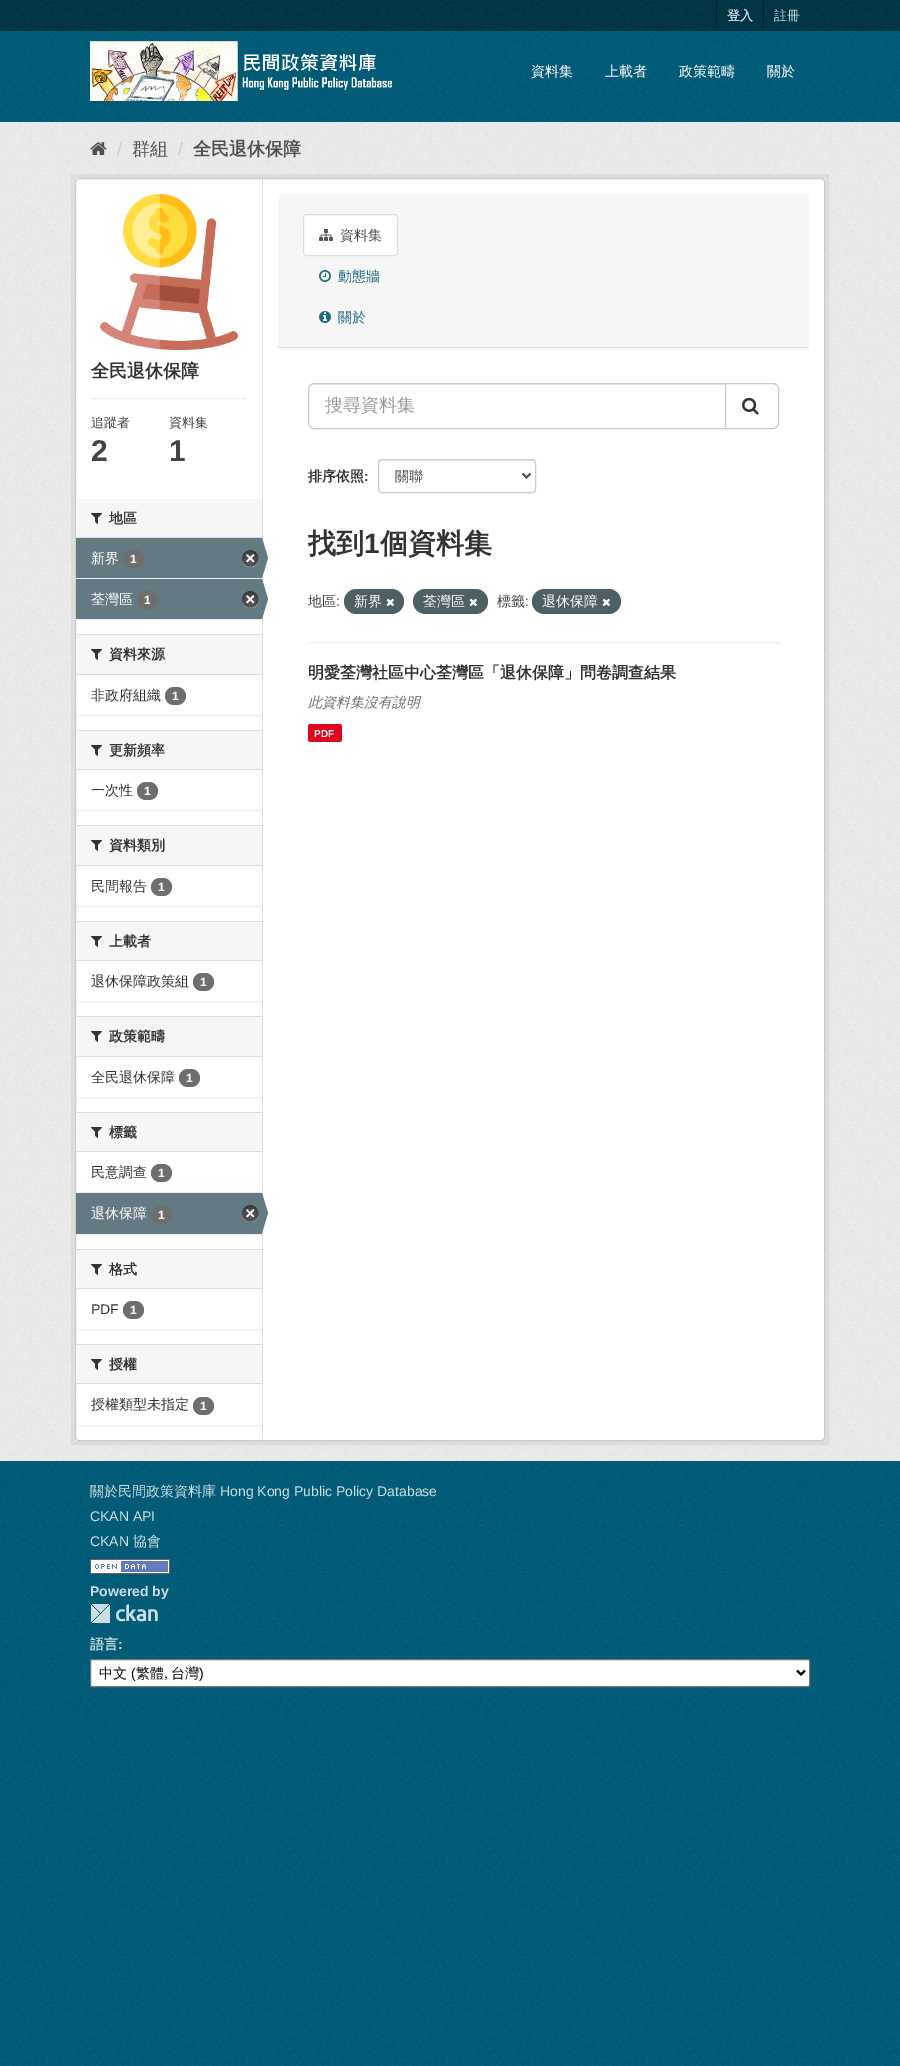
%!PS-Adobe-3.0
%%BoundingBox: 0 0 900 2066
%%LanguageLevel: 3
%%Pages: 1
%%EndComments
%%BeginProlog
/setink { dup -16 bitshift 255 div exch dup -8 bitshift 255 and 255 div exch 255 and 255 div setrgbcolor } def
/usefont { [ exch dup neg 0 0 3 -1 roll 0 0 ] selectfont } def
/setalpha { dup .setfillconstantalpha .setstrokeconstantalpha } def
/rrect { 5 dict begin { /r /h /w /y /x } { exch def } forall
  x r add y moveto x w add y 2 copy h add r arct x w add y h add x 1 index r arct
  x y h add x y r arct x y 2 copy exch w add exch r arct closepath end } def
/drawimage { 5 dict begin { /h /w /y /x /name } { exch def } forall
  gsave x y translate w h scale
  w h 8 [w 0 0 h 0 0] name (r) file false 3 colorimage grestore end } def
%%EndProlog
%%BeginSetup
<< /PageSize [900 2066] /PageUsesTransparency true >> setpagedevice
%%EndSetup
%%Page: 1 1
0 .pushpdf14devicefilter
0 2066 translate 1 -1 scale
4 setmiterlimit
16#005D7A setink
0 0 900 2066 rectfill
(img1.raw) 0 1707 900 359 drawimage
16#003647 setink
0 0 900 31 rectfill
(img2.raw) 0 0 900 31 drawimage
16#00232E setink
716 0 1 31 rectfill
/WenQuanYiZenHei-Bold 13 usefont
16#BFD7DE setink
727 20 moveto (登入) show
16#00232E setink
763 0 1 31 rectfill
/WenQuanYiZenHei-Medium 13 usefont
16#BFD7DE setink
774 20 moveto (註冊) show
(img3.raw) 0 31 900 91 drawimage
(img4.raw) 90 41 315 60 drawimage
/WenQuanYiZenHei-Medium 14 usefont
16#FFFFFF setink
[
    [(資料集) 531 76]
    [(上載者) 605 76]
    [(政策範疇) 679 76]
    [(關於) 767 76]
] { aload pop moveto show } forall
16#EEEEEE setink
0 122 900 1339 rectfill
(img5.raw) 0 122 900 1339 drawimage
(img6.raw) 90 142 17 13 drawimage
/LiberationSans-Regular 18 usefont
16#CCCCCC setink
117 155 moveto (/) show
/WenQuanYiZenHei-Medium 18 usefont
16#505050 setink
132 155 moveto (群組) show
/LiberationSans-Regular 18 usefont
16#CCCCCC setink
178 155 moveto (/) show
/WenQuanYiZenHei-Bold 18 usefont
16#505050 setink
193 155 moveto (全民退休保障) show
0.05 setalpha
16#000000 setink
4 setlinewidth
73 176 754 1267 rectstroke
1 setalpha
16#FFFFFF setink
75.5 178.5 749 1262 3.5 rrect gsave fill grestore
16#CCCCCC setink
1 setlinewidth
stroke
(img7.raw) 100 194 138 156 drawimage
16#333333 setink
91 377 moveto (全民退休保障) show
16#DDDDDD setink
[1 1] 0 setdash
91 398.5 moveto 247 398.5 lineto stroke
/WenQuanYiZenHei-Medium 13 usefont
16#444444 setink
91 427 moveto (追蹤者) show
/LiberationSans-Bold 30 usefont
91 461 moveto (2) show
/WenQuanYiZenHei-Medium 13 usefont
169 427 moveto (資料集) show
/LiberationSans-Bold 30 usefont
169 461 moveto (1) show
16#F6F6F6 setink
79 499 moveto 262 499 lineto 262 538 lineto 76 538 lineto 76 502 lineto 76 500.5 77.5 499 79 499 curveto closepath fill
16#DDDDDD setink
76 537 186 1 rectfill
(img8.raw) 91 513 11 11 drawimage
/WenQuanYiZenHei-Bold 14 usefont
16#333333 setink
109 523 moveto (地區) show
16#F6F6F6 setink
77 578 185 1 rectfill
16#DDDDDD setink
76 578.5 moveto 262 578.5 lineto stroke
16#647A82 setink
76 538 186 40 rectfill
/WenQuanYiZenHei-Medium 14 usefont
16#FFFFFF setink
91 563 moveto (新界) show
16#6E6E6E setink
123 550 21 18 9 rrect fill
/LiberationSans-Bold 12 usefont
16#FFFFFF setink
130 563 moveto (1) show
(img9.raw) 242 550 17 17 drawimage
16#DDDDDD setink
262 179 1 1261 rectfill
16#647A82 setink
262 578 moveto 262 538 lineto 268 558 lineto closepath fill
76 579 186 40 rectfill
/WenQuanYiZenHei-Medium 14 usefont
16#FFFFFF setink
91 604 moveto (荃灣區) show
16#6E6E6E setink
137 591 21 18 9 rrect fill
/LiberationSans-Bold 12 usefont
16#FFFFFF setink
144 604 moveto (1) show
(img9.raw) 242 591 17 17 drawimage
16#647A82 setink
262 619 moveto 262 579 lineto 268 599 lineto closepath fill
16#DDDDDD setink
76 619.5 moveto 262 619.5 lineto stroke
[
    [76 635 186 39 16#F6F6F6]
    [76 634 186 1 16#DDDDDD]
    [76 674 186 1 16#DDDDDD]
] { aload pop setink rectfill } forall
(img8.raw) 91 649 11 11 drawimage
/WenQuanYiZenHei-Bold 14 usefont
16#333333 setink
109 659 moveto (資料來源) show
/WenQuanYiZenHei-Medium 14 usefont
91 700 moveto (非政府組織) show
16#6E6E6E setink
165 687 21 18 9 rrect fill
/LiberationSans-Bold 12 usefont
16#FFFFFF setink
172 700 moveto (1) show
16#DDDDDD setink
76 715.5 moveto 262 715.5 lineto stroke
[
    [76 731 186 38 16#F6F6F6]
    [76 730 186 1 16#DDDDDD]
    [76 769 186 1 16#DDDDDD]
] { aload pop setink rectfill } forall
(img8.raw) 91 745 11 11 drawimage
/WenQuanYiZenHei-Bold 14 usefont
16#333333 setink
109 755 moveto (更新頻率) show
/WenQuanYiZenHei-Medium 14 usefont
91 795 moveto (一次性) show
16#6E6E6E setink
137 782 21 18 9 rrect fill
/LiberationSans-Bold 12 usefont
16#FFFFFF setink
144 795 moveto (1) show
16#DDDDDD setink
76 810.5 moveto 262 810.5 lineto stroke
[
    [76 826 186 39 16#F6F6F6]
    [76 825 186 1 16#DDDDDD]
    [76 865 186 1 16#DDDDDD]
] { aload pop setink rectfill } forall
(img8.raw) 91 840 11 11 drawimage
/WenQuanYiZenHei-Bold 14 usefont
16#333333 setink
109 850 moveto (資料類別) show
/WenQuanYiZenHei-Medium 14 usefont
91 891 moveto (民間報告) show
16#6E6E6E setink
151 878 21 18 9 rrect fill
/LiberationSans-Bold 12 usefont
16#FFFFFF setink
158 891 moveto (1) show
16#DDDDDD setink
76 906.5 moveto 262 906.5 lineto stroke
[
    [76 922 186 38 16#F6F6F6]
    [76 921 186 1 16#DDDDDD]
    [76 960 186 1 16#DDDDDD]
] { aload pop setink rectfill } forall
(img8.raw) 91 936 11 11 drawimage
/WenQuanYiZenHei-Bold 14 usefont
16#333333 setink
109 946 moveto (上載者) show
/WenQuanYiZenHei-Medium 14 usefont
91 986 moveto (退休保障政策組) show
16#6E6E6E setink
193 973 21 18 9 rrect fill
/LiberationSans-Bold 12 usefont
16#FFFFFF setink
200 986 moveto (1) show
16#DDDDDD setink
76 1001.5 moveto 262 1001.5 lineto stroke
[
    [76 1017 186 39 16#F6F6F6]
    [76 1016 186 1 16#DDDDDD]
    [76 1056 186 1 16#DDDDDD]
] { aload pop setink rectfill } forall
(img8.raw) 91 1031 11 11 drawimage
/WenQuanYiZenHei-Bold 14 usefont
16#333333 setink
109 1041 moveto (政策範疇) show
/WenQuanYiZenHei-Medium 14 usefont
91 1082 moveto (全民退休保障) show
16#6E6E6E setink
179 1069 21 18 9 rrect fill
/LiberationSans-Bold 12 usefont
16#FFFFFF setink
186 1082 moveto (1) show
16#DDDDDD setink
76 1097.5 moveto 262 1097.5 lineto stroke
[
    [76 1113 186 38 16#F6F6F6]
    [76 1112 186 1 16#DDDDDD]
    [76 1151 186 1 16#DDDDDD]
] { aload pop setink rectfill } forall
(img8.raw) 91 1127 11 11 drawimage
/WenQuanYiZenHei-Bold 14 usefont
16#333333 setink
109 1137 moveto (標籤) show
16#DDDDDD setink
76 1192.5 moveto 262 1192.5 lineto stroke
/WenQuanYiZenHei-Medium 14 usefont
16#333333 setink
91 1177 moveto (民意調查) show
16#6E6E6E setink
151 1164 21 18 9 rrect fill
/LiberationSans-Bold 12 usefont
16#FFFFFF setink
158 1177 moveto (1) show
16#647A82 setink
76 1193 186 41 rectfill
/WenQuanYiZenHei-Medium 14 usefont
16#FFFFFF setink
91 1218 moveto (退休保障) show
16#6E6E6E setink
151 1206 21 18 9 rrect fill
/LiberationSans-Bold 12 usefont
16#FFFFFF setink
158 1219 moveto (1) show
(img9.raw) 242 1205 17 17 drawimage
16#647A82 setink
262 1233 moveto 262 1193 lineto 268 1213 lineto closepath fill
16#DDDDDD setink
76 1234.5 moveto 262 1234.5 lineto stroke
[
    [76 1250 186 38 16#F6F6F6]
    [76 1249 186 1 16#DDDDDD]
    [76 1288 186 1 16#DDDDDD]
] { aload pop setink rectfill } forall
(img8.raw) 91 1264 11 11 drawimage
/WenQuanYiZenHei-Bold 14 usefont
16#333333 setink
109 1274 moveto (格式) show
/LiberationSans-Regular 14 usefont
91 1314 moveto (PDF) show
16#6E6E6E setink
123 1301 21 18 9 rrect fill
/LiberationSans-Bold 12 usefont
16#FFFFFF setink
130 1314 moveto (1) show
16#DDDDDD setink
76 1329.5 moveto 262 1329.5 lineto stroke
[
    [76 1345 186 38 16#F6F6F6]
    [76 1344 186 1 16#DDDDDD]
    [76 1383 186 1 16#DDDDDD]
] { aload pop setink rectfill } forall
(img8.raw) 91 1359 11 11 drawimage
/WenQuanYiZenHei-Bold 14 usefont
16#333333 setink
109 1369 moveto (授權) show
/WenQuanYiZenHei-Medium 14 usefont
91 1409 moveto (授權類型未指定) show
16#6E6E6E setink
193 1397 21 18 9 rrect fill
/LiberationSans-Bold 12 usefont
16#FFFFFF setink
200 1410 moveto (1) show
16#DDDDDD setink
76 1425.5 moveto 262 1425.5 lineto stroke
16#F6F6F6 setink
278 194 moveto 806 194 lineto 807.5 194 809 195.5 809 197 curveto 809 348 lineto 278 348 lineto closepath fill
16#DDDDDD setink
278 347 531 1 rectfill
16#FFFFFF setink
303.5 214.5 94 41 3.5 rrect gsave fill grestore
16#DDDDDD setink
[] 0 setdash
stroke
(img10.raw) 319 229 14 12 drawimage
/WenQuanYiZenHei-Medium 14 usefont
16#505050 setink
340 240 moveto (資料集) show
(img11.raw) 319 270 12 12 drawimage
16#206B82 setink
338 281 moveto (動態牆) show
(img12.raw) 319 311 12 12 drawimage
338 322 moveto (關於) show
16#DDDDDD setink
[1 1] 0 setdash
308 642.5 moveto 779 642.5 lineto stroke
16#ECECEC setink
314 385 moveto 725 385 lineto 725 384 lineto 314 384 lineto 311 384 309 387 309 390 curveto 309 387 311 385 314 385 curveto closepath fill
16#CCCCCC setink
[] 0 setdash
314 383.5 moveto 725.5 383.5 lineto 725.5 428.5 lineto 314 428.5 lineto 311 428.5 308.5 426 308.5 423 curveto 308.5 389 lineto 308.5 386 311 383.5 314 383.5 curveto closepath stroke
/WenQuanYiZenHei-Medium 18 usefont
16#999999 setink
325 411 moveto (搜尋資料集) show
16#FFFFFF setink
725.5 383.5 moveto 773 383.5 lineto 776 383.5 778.5 386 778.5 389 curveto 778.5 423 lineto 778.5 426 776 428.5 773 428.5 curveto 725.5 428.5 lineto closepath gsave fill grestore
16#CCCCCC setink
stroke
(img13.raw) 742 397 17 18 drawimage
/WenQuanYiZenHei-Bold 14 usefont
16#333333 setink
308 481 moveto (排序依照) show
/LiberationSans-Bold 14 usefont
364 481 moveto (:) show
16#ECECEC setink
382 461 moveto 532 461 lineto 534 461 535 462 535 464 curveto 535 462 534 460 532 460 curveto 381 460 lineto 379 460 379 462 379 464 curveto 379 462 380 461 382 461 curveto closepath fill
16#CCCCCC setink
378.5 459.5 157 33 3.5 rrect stroke
16#555555 setink
2 setlinewidth
522.5 473.5 moveto 526.5 477.5 lineto 530.5 473.5 lineto stroke
/WenQuanYiZenHei-Medium 14 usefont
16#505050 setink
395 481 moveto (關聯) show
/WenQuanYiZenHei-Bold 28 usefont
16#333333 setink
308 553 moveto (找到) show
/LiberationSans-Bold 28 usefont
364 553 moveto (1) show
/WenQuanYiZenHei-Bold 28 usefont
380 553 moveto (個資料集) show
/WenQuanYiZenHei-Medium 14 usefont
16#444444 setink
308 606 moveto (地區) show
/LiberationSans-Regular 14 usefont
336 606 moveto (:) show
16#4E5F65 setink
344 589 60 25 12.5 rrect fill
/WenQuanYiZenHei-Medium 14 usefont
16#FFFFFF setink
354 606 moveto (新界) show
(img14.raw) 386 598 8 9 drawimage
16#4E5F65 setink
413 589 75 25 12.5 rrect fill
16#FFFFFF setink
423 606 moveto (荃灣區) show
(img14.raw) 469 598 8 9 drawimage
16#444444 setink
497 606 moveto (標籤) show
/LiberationSans-Regular 14 usefont
525 606 moveto (:) show
16#4E5F65 setink
532 589 89 25 12.5 rrect fill
/WenQuanYiZenHei-Medium 14 usefont
16#FFFFFF setink
542 606 moveto (退休保障) show
(img14.raw) 602 598 8 9 drawimage
/WenQuanYiZenHei-Bold 16 usefont
16#333333 setink
308 678 moveto (明愛荃灣社區中心荃灣區「退休保障」問卷調查結果) show
/WenQuanYiZenHei-MediumItalic 14 usefont
16#6E6E6E setink
308 707 moveto (此資料集沒有說明) show
16#E0051E setink
308 724 34 18 2.5 rrect fill
/LiberationSans-Bold 10 usefont
16#FFFFFF setink
314 737 moveto (PDF) show
(img15.raw) 0 1461 900 246 drawimage
/WenQuanYiZenHei-Medium 14 usefont
16#CCDEE3 setink
90 1496 moveto (關於民間政策資料庫) show
/LiberationSans-Regular 14 usefont
[
    [(Hong Kong Public Policy Database) 220 1496]
    [(CKAN API) 90 1521]
    [(CKAN) 90 1546]
] { aload pop moveto show } forall
/WenQuanYiZenHei-Medium 14 usefont
133 1546 moveto (協會) show
(img16.raw) 90 1559 80 15 drawimage
/LiberationSans-Bold 14 usefont
90 1596 moveto (Powered by) show
(img17.raw) 91 1604 67 19 drawimage
/WenQuanYiZenHei-Bold 14 usefont
90 1649 moveto (語言) show
/LiberationSans-Bold 14 usefont
118 1649 moveto (:) show
16#FFFFFF setink
90.5 1659.5 719 27 1.5 rrect gsave fill grestore
16#767676 setink
1 setlinewidth
stroke
16#000000 setink
2 setlinewidth
797 1670.5 moveto 801 1674.5 lineto 805 1670.5 lineto stroke
/WenQuanYiZenHei-Medium 14 usefont
99 1678 moveto (中文) show
/LiberationSans-Regular 14 usefont
131 1678 moveto (\() show
/WenQuanYiZenHei-Medium 14 usefont
136 1678 moveto (繁體) show
/LiberationSans-Regular 14 usefont
164 1678 moveto (,) show
/WenQuanYiZenHei-Medium 14 usefont
171 1678 moveto (台灣) show
/LiberationSans-Regular 14 usefont
199 1678 moveto (\)) show
.poppdf14devicefilter showpage
%%EOF
